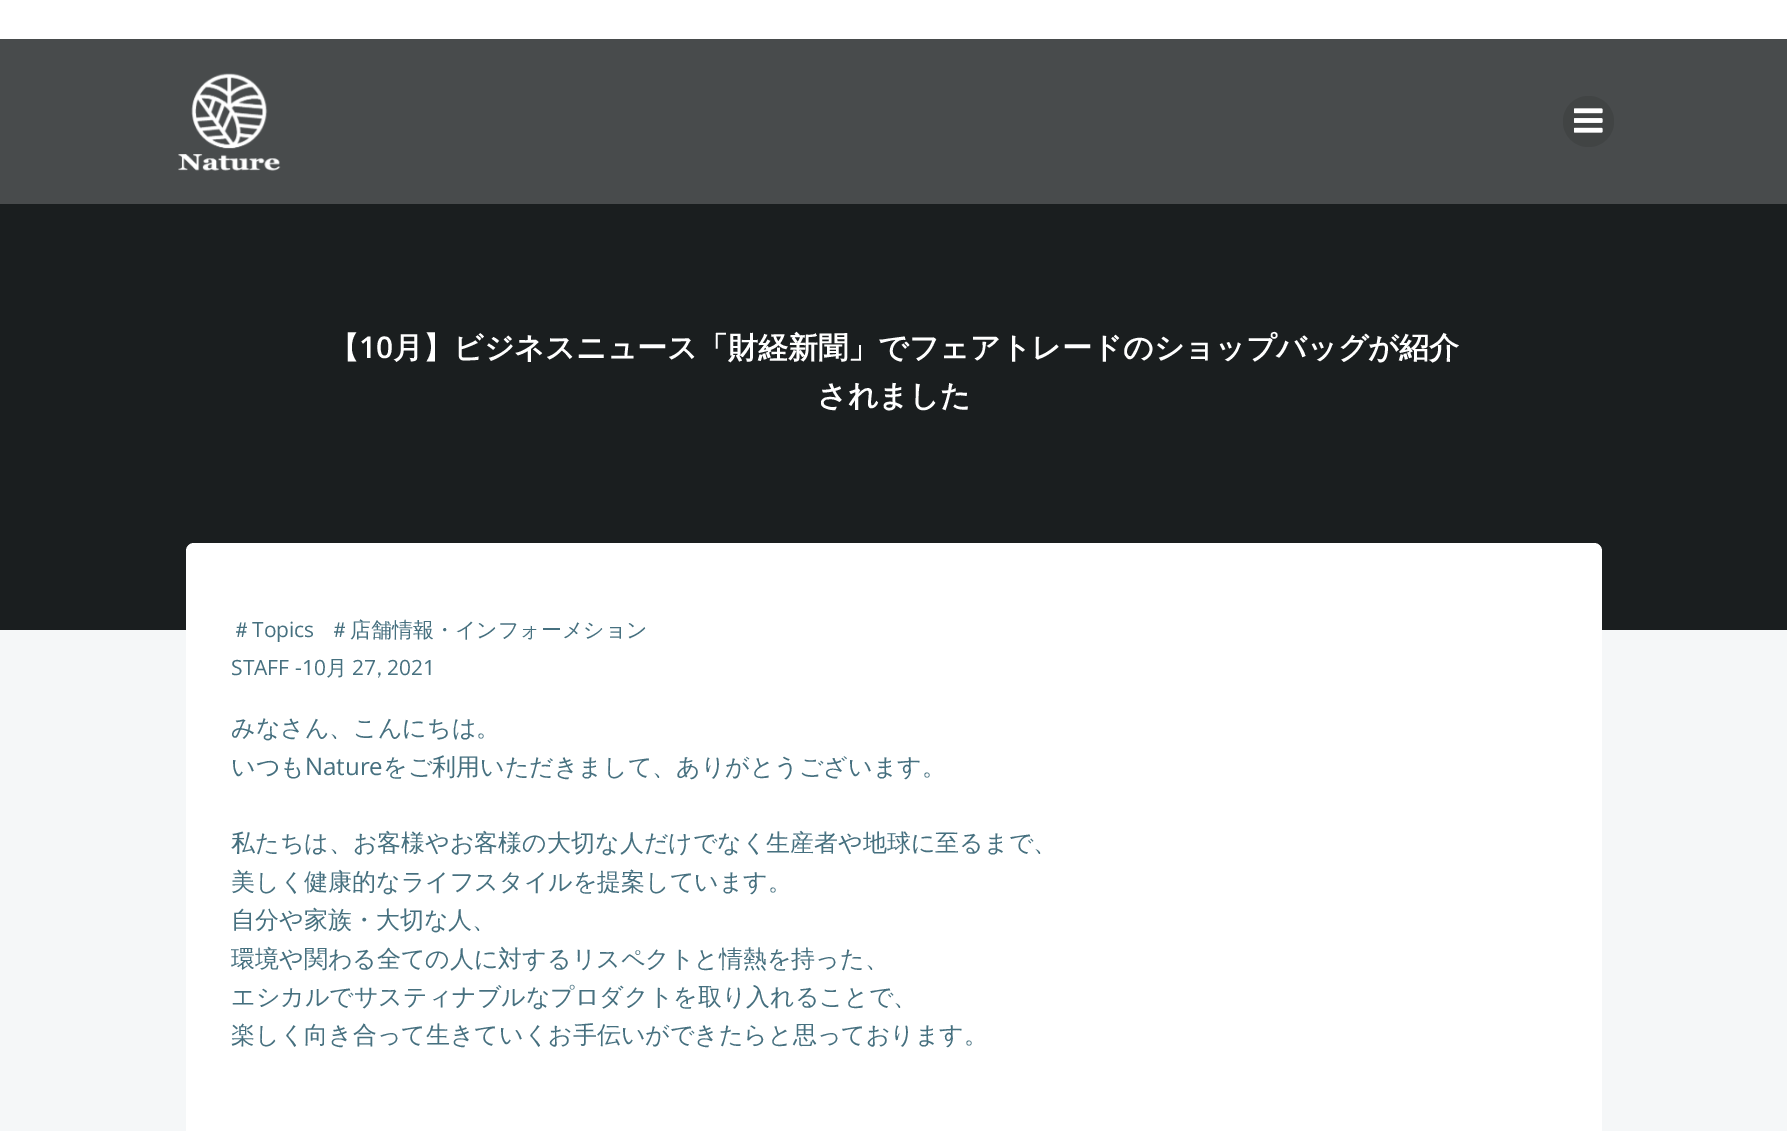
%!PS-Adobe-3.0
%%BoundingBox: 0 0 1787 1131
%%LanguageLevel: 3
%%Pages: 1
%%EndComments
%%BeginProlog
/setink { dup -16 bitshift 255 div exch dup -8 bitshift 255 and 255 div exch 255 and 255 div setrgbcolor } def
/usefont { [ exch dup neg 0 0 3 -1 roll 0 0 ] selectfont } def
/disc { newpath 0 360 arc closepath } def
/rrect { 5 dict begin { /r /h /w /y /x } { exch def } forall
  x r add y moveto x w add y 2 copy h add r arct x w add y h add x 1 index r arct
  x y h add x y r arct x y 2 copy exch w add exch r arct closepath end } def
/drawimage { 5 dict begin { /h /w /y /x /name } { exch def } forall
  gsave x y translate w h scale
  w h 8 [w 0 0 h 0 0] name (r) file false 3 colorimage grestore end } def
%%EndProlog
%%BeginSetup
<< /PageSize [1787 1131] >> setpagedevice
%%EndSetup
%%Page: 1 1
0 1131 translate 1 -1 scale
4 setmiterlimit
16#FFFFFF setink
0 0 1787 1131 rectfill
16#484B4C setink
0 39 1787 165 rectfill
(img1.raw) 178 73 103 98 drawimage
16#414444 setink
1588.5 121.5 25.5 disc fill
(img2.raw) 1574 108 29 25 drawimage
16#1A1E1F setink
0 204 1787 426 rectfill
/WenQuanYiZenHei-Bold 30 usefont
16#FFFFFF setink
329 358 moveto (【) show
/OpenSans-SemiBold 30 usefont
359 358 moveto (10) show
/WenQuanYiZenHei-Bold 30 usefont
393 358 moveto (月】ビジネスニュース「財経新聞」でフェアトレードのショップバッグが紹介) show
817 406 moveto (されました) show
16#F5F7F8 setink
0 630 1787 501 rectfill
16#FFFFFF setink
186 543 1416 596 8 rrect fill
/WenQuanYiZenHei-Medium 21 usefont
16#46707F setink
231 637 moveto (＃) show
/OpenSans-Regular 21 usefont
252 637 moveto (Topics) show
/WenQuanYiZenHei-Medium 21 usefont
329 637 moveto (＃店舗情報・インフォーメション) show
/OpenSans-Regular 21 usefont
231 675 moveto (STAFF) show
295 675 moveto (-10) show
/WenQuanYiZenHei-Medium 21 usefont
326 675 moveto (月) show
/OpenSans-Regular 21 usefont
352 675 moveto (27) show
/WenQuanYiZenHei-Medium 21 usefont
376 675 moveto (,) show
/OpenSans-Regular 21 usefont
387 675 moveto (2021) show
/WenQuanYiZenHei-Medium 24 usefont
231 736 moveto (みなさん、こんにちは。) show
231 775 moveto (いつも) show
/OpenSans-Regular 24 usefont
305 775 moveto (Nature) show
/WenQuanYiZenHei-Medium 24 usefont
[
    [(をご利用いただきまして、ありがとうございます。) 383 775]
    [(私たちは、お客様やお客様の大切な人だけでなく生産者や地球に至るまで、) 231 851]
    [(美しく健康的なライフスタイルを提案しています。) 231 890]
    [(自分や家族・大切な人、) 231 928]
    [(環境や関わる全ての人に対するリスペクトと情熱を持った、) 231 967]
    [(エシカルでサスティナブルなプロダクトを取り入れることで、) 231 1005]
    [(楽しく向き合って生きていくお手伝いができたらと思っております。) 231 1043]
] { aload pop moveto show } forall
showpage
%%EOF
